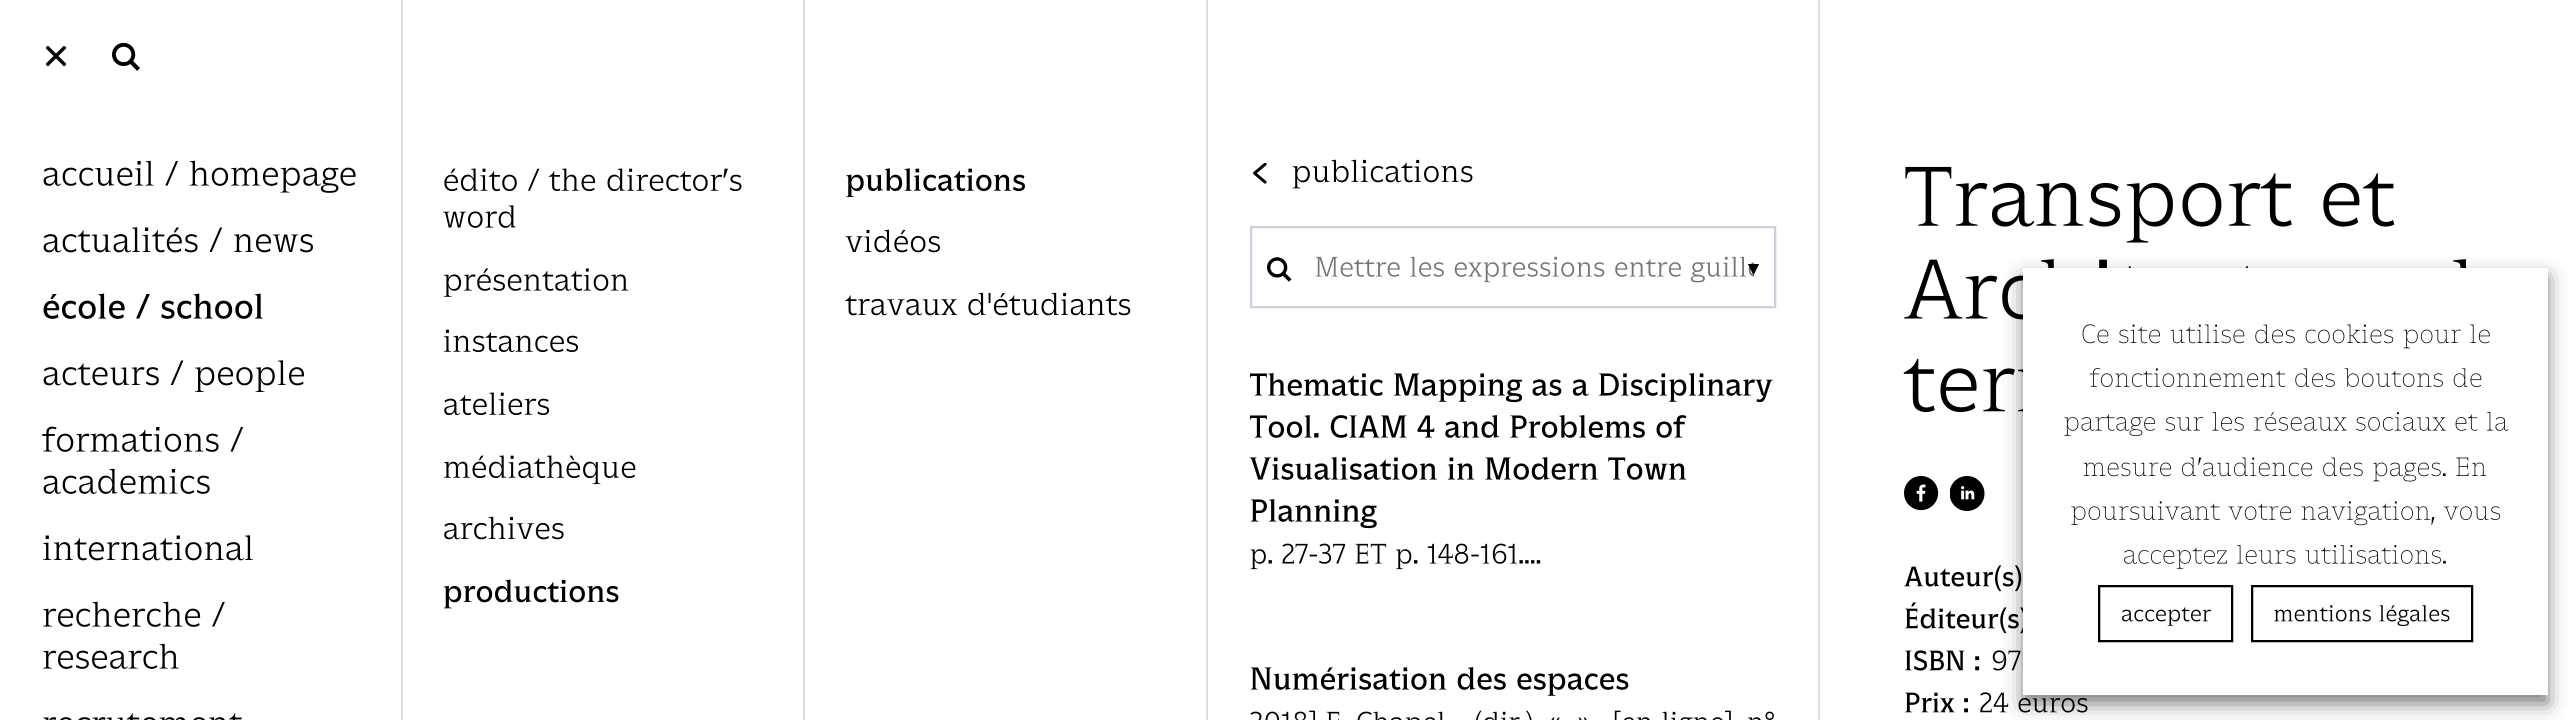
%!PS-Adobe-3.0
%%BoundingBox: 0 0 2573 720
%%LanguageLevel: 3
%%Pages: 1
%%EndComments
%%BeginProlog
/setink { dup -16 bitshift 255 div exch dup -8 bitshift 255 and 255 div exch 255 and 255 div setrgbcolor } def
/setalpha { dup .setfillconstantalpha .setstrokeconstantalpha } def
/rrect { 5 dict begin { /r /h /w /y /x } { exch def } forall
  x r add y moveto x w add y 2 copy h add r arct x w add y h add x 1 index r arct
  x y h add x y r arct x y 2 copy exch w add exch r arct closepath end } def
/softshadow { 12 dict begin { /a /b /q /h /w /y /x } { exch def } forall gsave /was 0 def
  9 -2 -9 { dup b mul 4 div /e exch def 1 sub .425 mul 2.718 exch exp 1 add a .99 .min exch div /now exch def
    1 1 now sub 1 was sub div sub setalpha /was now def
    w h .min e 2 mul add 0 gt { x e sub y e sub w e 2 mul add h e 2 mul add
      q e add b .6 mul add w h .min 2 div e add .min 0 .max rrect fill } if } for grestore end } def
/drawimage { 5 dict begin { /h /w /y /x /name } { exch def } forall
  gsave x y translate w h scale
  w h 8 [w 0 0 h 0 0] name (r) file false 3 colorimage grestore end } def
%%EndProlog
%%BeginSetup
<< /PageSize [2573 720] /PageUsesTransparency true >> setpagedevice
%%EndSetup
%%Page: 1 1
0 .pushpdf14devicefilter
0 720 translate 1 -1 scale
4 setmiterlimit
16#FFFFFF setink
0 0 2573 720 rectfill
16#DDDDDD setink
401 0 2 720 rectfill
(img1.raw) 43 160 313 33 drawimage
(img2.raw) 43 227 270 26 drawimage
(img3.raw) 43 293 220 26 drawimage
(img4.raw) 43 360 261 32 drawimage
(img5.raw) 42 426 202 26 drawimage
(img6.raw) 43 468 167 26 drawimage
(img7.raw) 43 535 211 26 drawimage
(img8.raw) 43 601 182 26 drawimage
(img9.raw) 43 643 136 26 drawimage
(img10.raw) 43 713 199 7 drawimage
803 0 2 720 rectfill
(img11.raw) 444 168 298 24 drawimage
(img12.raw) 443 205 73 23 drawimage
(img13.raw) 443 268 186 29 drawimage
(img14.raw) 443 329 135 24 drawimage
(img15.raw) 444 392 106 24 drawimage
(img16.raw) 443 455 193 30 drawimage
(img17.raw) 444 516 120 24 drawimage
(img18.raw) 443 579 176 30 drawimage
1206 0 2 720 rectfill
(img19.raw) 846 168 179 30 drawimage
(img20.raw) 845 229 95 24 drawimage
(img21.raw) 845 292 286 24 drawimage
(img22.raw) 46 46 21 21 drawimage
(img23.raw) 112 42 28 29 drawimage
1818 0 2 720 rectfill
(img24.raw) 1253 163 14 21 drawimage
(img25.raw) 1292 159 181 30 drawimage
16#CED0DA setink
2 setlinewidth
1251 227 524 80 rectstroke
(img26.raw) 1315 256 439 27 drawimage
(img27.raw) 1267 257 25 25 drawimage
16#000000 setink
1753.5 275 moveto 1748 264 lineto 1759 264 lineto closepath eofill
(img28.raw) 1249 373 524 30 drawimage
(img29.raw) 1249 415 438 23 drawimage
(img30.raw) 1249 457 438 23 drawimage
(img31.raw) 1250 499 127 30 drawimage
(img32.raw) 1250 543 291 27 drawimage
(img33.raw) 1250 667 379 29 drawimage
(img34.raw) 1250 710 524 10 drawimage
(img35.raw) 1905 166 490 77 drawimage
(img36.raw) 1904 259 562 61 drawimage
(img37.raw) 1903 358 120 55 drawimage
(img38.raw) 1904 476 35 35 drawimage
(img39.raw) 1950 476 35 35 drawimage
(img40.raw) 1904 565 118 27 drawimage
(img41.raw) 1905 602 118 32 drawimage
(img42.raw) 1905 650 75 21 drawimage
(img43.raw) 1992 650 31 21 drawimage
(img44.raw) 1905 692 63 21 drawimage
(img45.raw) 1980 692 108 21 drawimage
2023 277 525 427 0 9 0.5 softshadow
16#FFFFFF setink
2023 268 525 427 rectfill
(img46.raw) 2082 324 408 25 drawimage
(img47.raw) 2089 368 393 19 drawimage
(img48.raw) 2064 412 445 24 drawimage
(img49.raw) 2083 457 404 25 drawimage
(img50.raw) 2071 501 430 25 drawimage
(img51.raw) 2124 545 322 24 drawimage
16#000000 setink
2099 586 133 55 rectstroke
(img52.raw) 2122 607 89 19 drawimage
2252 586 220 55 rectstroke
(img53.raw) 2274 605 176 21 drawimage
.poppdf14devicefilter showpage
%%EOF
